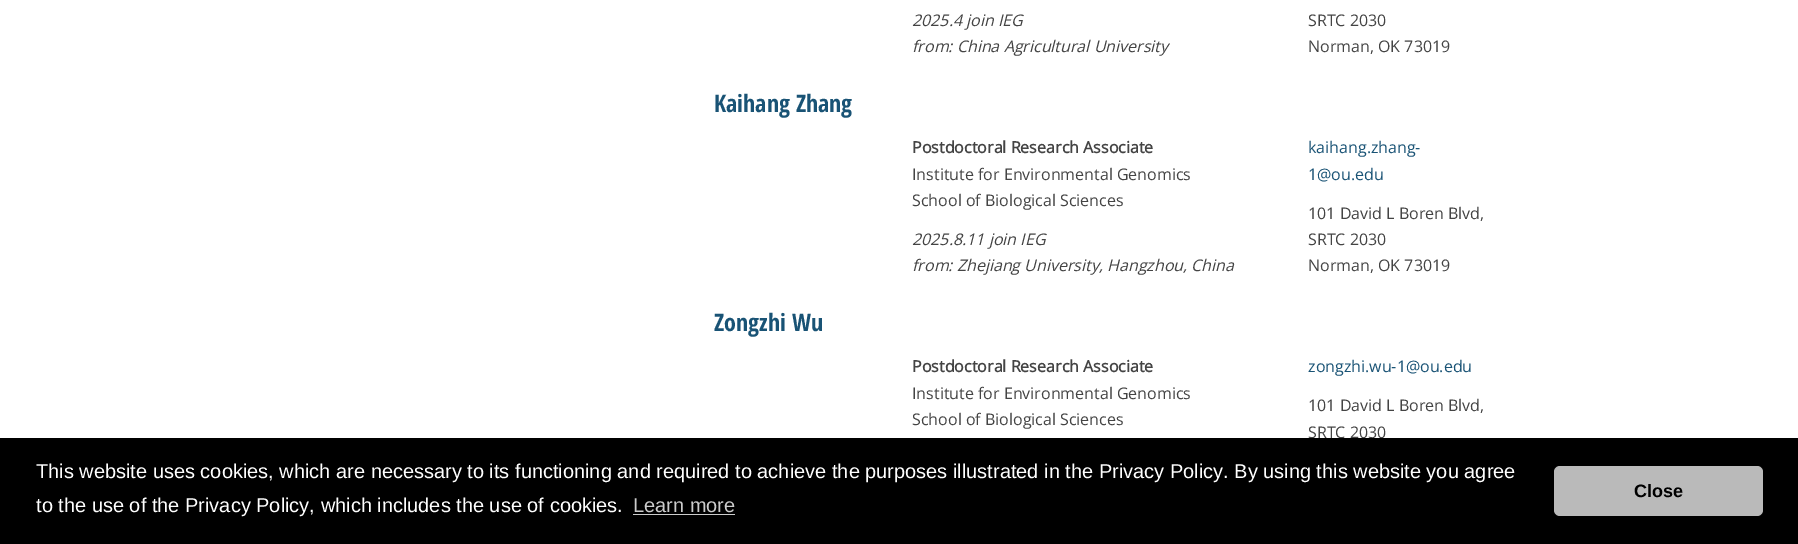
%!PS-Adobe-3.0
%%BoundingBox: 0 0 1798 544
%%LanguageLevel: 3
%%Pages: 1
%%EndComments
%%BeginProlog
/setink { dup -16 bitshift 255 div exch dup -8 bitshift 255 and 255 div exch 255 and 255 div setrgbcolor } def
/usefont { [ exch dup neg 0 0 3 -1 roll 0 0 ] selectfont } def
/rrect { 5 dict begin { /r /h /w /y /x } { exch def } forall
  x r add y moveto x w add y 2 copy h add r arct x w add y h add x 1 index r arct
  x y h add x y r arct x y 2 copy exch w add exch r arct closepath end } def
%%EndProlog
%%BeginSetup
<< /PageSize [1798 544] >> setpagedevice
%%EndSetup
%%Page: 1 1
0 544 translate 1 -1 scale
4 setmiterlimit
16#FFFFFF setink
0 0 1798 544 rectfill
/OpenSans-Italic 16 usefont
16#444444 setink
912 26 moveto (2025.4 join IEG) show
912 52 moveto (from: China Agricultural University) show
/OpenSans-Regular 16 usefont
1308 26 moveto (SRTC 2030) show
1308 52 moveto (Norman, OK 73019) show
/OpenSansCondensed-Bold 24 usefont
16#195375 setink
714 112 moveto (Kaihang Zhang) show
/OpenSans-Bold 16 usefont
16#444444 setink
912 153 moveto (Postdoctoral Research Associate) show
/OpenSans-Regular 16 usefont
912 180 moveto (Institute for Environmental Genomics) show
912 206 moveto (School of Biological Sciences) show
/OpenSans-Italic 16 usefont
912 245 moveto (2025.8.11 join IEG) show
912 271 moveto (from: Zhejiang University, Hangzhou, China) show
/OpenSans-Regular 16 usefont
16#195375 setink
1308 153 moveto (kaihang.zhang-) show
1308 180 moveto (1@ou.edu) show
16#444444 setink
[
    [(101 David L Boren Blvd,) 1308 219]
    [(SRTC 2030) 1308 245]
    [(Norman, OK 73019) 1308 271]
] { aload pop moveto show } forall
/OpenSansCondensed-Bold 24 usefont
16#195375 setink
714 331 moveto (Zongzhi Wu) show
/OpenSans-Bold 16 usefont
16#444444 setink
912 372 moveto (Postdoctoral Research Associate) show
/OpenSans-Regular 16 usefont
912 399 moveto (Institute for Environmental Genomics) show
912 425 moveto (School of Biological Sciences) show
16#195375 setink
1308 372 moveto (zongzhi.wu-1@ou.edu) show
16#444444 setink
1308 411 moveto (101 David L Boren Blvd,) show
1308 438 moveto (SRTC 2030) show
16#000000 setink
0 438 1798 106 rectfill
/LiberationSans-Regular 20 usefont
16#FFFFFF setink
36 478 moveto (This website uses cookies, which are necessary to its functioning and required to achieve the purposes illustrated in the Privacy Policy. By using this website you agree) show
36 512 moveto (to the use of the Privacy Policy, which includes the use of cookies.) show
16#CCCCCC setink
633 512 moveto (Learn more) show
633 514 102 1 rectfill
16#BABABA setink
1554 466 209 50 6 rrect fill
/LiberationSans-Bold 18 usefont
16#000000 setink
1634 497 moveto (Close) show
showpage
%%EOF
